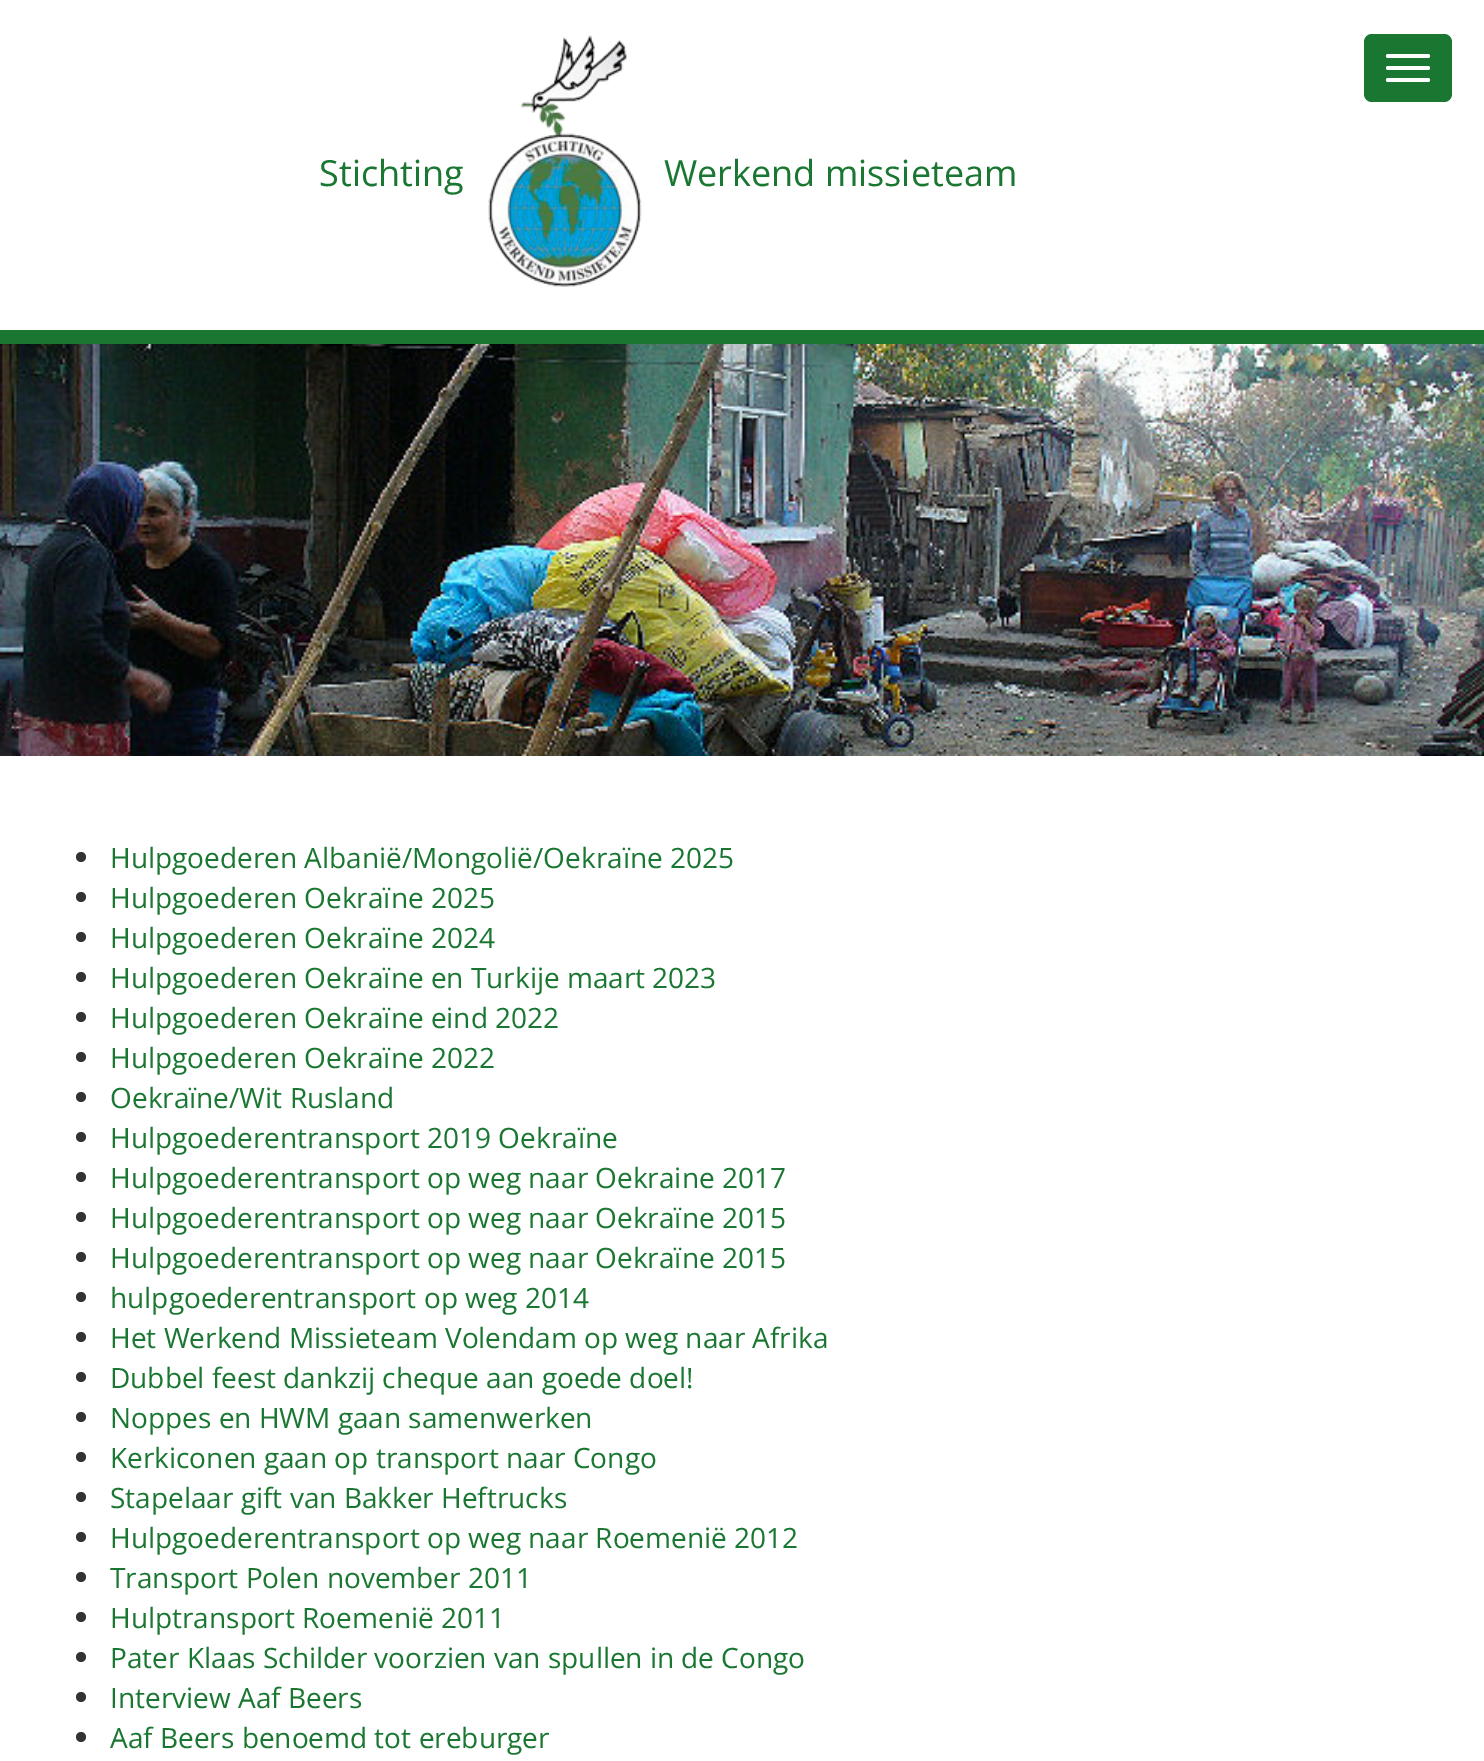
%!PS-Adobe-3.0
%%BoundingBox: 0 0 1484 1761
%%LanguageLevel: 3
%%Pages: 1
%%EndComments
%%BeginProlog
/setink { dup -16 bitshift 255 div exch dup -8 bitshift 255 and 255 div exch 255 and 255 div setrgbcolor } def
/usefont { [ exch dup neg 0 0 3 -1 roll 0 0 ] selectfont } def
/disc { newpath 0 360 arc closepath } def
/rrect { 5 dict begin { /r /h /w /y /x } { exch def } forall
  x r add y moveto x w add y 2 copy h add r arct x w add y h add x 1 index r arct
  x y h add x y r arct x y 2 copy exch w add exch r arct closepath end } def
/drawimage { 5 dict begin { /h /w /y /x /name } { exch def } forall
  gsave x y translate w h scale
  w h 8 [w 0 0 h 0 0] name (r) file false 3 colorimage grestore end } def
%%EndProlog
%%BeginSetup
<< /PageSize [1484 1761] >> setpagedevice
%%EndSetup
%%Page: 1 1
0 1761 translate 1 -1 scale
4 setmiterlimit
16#FFFFFF setink
0 0 1484 1761 rectfill
16#197732 setink
1364 34 88 68 8 rrect fill
16#FFFFFF setink
1386 54 44 4 2 rrect fill
1386 66 44 4 2 rrect fill
1386 78 44 4 2 rrect fill
/OpenSans-Regular 36 usefont
16#197732 setink
319 186 moveto (Stichting) show
(img1.raw) 488 35 154 252 drawimage
664 186 moveto (Werkend missieteam) show
0 330 1484 14 rectfill
(img2.raw) 0 344 1484 412 drawimage
16#333333 setink
81 857 5 disc fill
/OpenSans-Regular 28 usefont
16#197732 setink
110 868 moveto (Hulpgoederen Albanië/Mongolië/Oekraïne 2025) show
16#333333 setink
81 897 5 disc fill
16#197732 setink
110 908 moveto (Hulpgoederen Oekraïne 2025) show
16#333333 setink
81 937 5 disc fill
16#197732 setink
110 948 moveto (Hulpgoederen Oekraïne 2024) show
16#333333 setink
81 977 5 disc fill
16#197732 setink
110 988 moveto (Hulpgoederen Oekraïne en Turkije maart 2023) show
16#333333 setink
81 1017 5 disc fill
16#197732 setink
110 1028 moveto (Hulpgoederen Oekraïne eind 2022) show
16#333333 setink
81 1057 5 disc fill
16#197732 setink
110 1068 moveto (Hulpgoederen Oekraïne 2022) show
16#333333 setink
81 1097 5 disc fill
16#197732 setink
110 1108 moveto (Oekraïne/Wit Rusland) show
16#333333 setink
81 1137 5 disc fill
16#197732 setink
110 1148 moveto (Hulpgoederentransport 2019 Oekraïne) show
16#333333 setink
81 1177 5 disc fill
16#197732 setink
110 1188 moveto (Hulpgoederentransport op weg naar Oekraine 2017) show
16#333333 setink
81 1217 5 disc fill
16#197732 setink
110 1228 moveto (Hulpgoederentransport op weg naar Oekraïne 2015) show
16#333333 setink
81 1257 5 disc fill
16#197732 setink
110 1268 moveto (Hulpgoederentransport op weg naar Oekraïne 2015) show
16#333333 setink
81 1297 5 disc fill
16#197732 setink
110 1308 moveto (hulpgoederentransport op weg 2014) show
16#333333 setink
81 1337 5 disc fill
16#197732 setink
110 1348 moveto (Het Werkend Missieteam Volendam op weg naar Afrika) show
16#333333 setink
81 1377 5 disc fill
16#197732 setink
110 1388 moveto (Dubbel feest dankzij cheque aan goede doel!) show
16#333333 setink
81 1417 5 disc fill
16#197732 setink
110 1428 moveto (Noppes en HWM gaan samenwerken) show
16#333333 setink
81 1457 5 disc fill
16#197732 setink
110 1468 moveto (Kerkiconen gaan op transport naar Congo) show
16#333333 setink
81 1497 5 disc fill
16#197732 setink
110 1508 moveto (Stapelaar gift van Bakker Heftrucks) show
16#333333 setink
81 1537 5 disc fill
16#197732 setink
110 1548 moveto (Hulpgoederentransport op weg naar Roemenië 2012) show
16#333333 setink
81 1577 5 disc fill
16#197732 setink
110 1588 moveto (Transport Polen november 2011) show
16#333333 setink
81 1617 5 disc fill
16#197732 setink
110 1628 moveto (Hulptransport Roemenië 2011) show
16#333333 setink
81 1657 5 disc fill
16#197732 setink
110 1668 moveto (Pater Klaas Schilder voorzien van spullen in de Congo) show
16#333333 setink
81 1697 5 disc fill
16#197732 setink
110 1708 moveto (Interview Aaf Beers) show
16#333333 setink
81 1737 5 disc fill
16#197732 setink
110 1748 moveto (Aaf Beers benoemd tot ereburger) show
showpage
%%EOF
